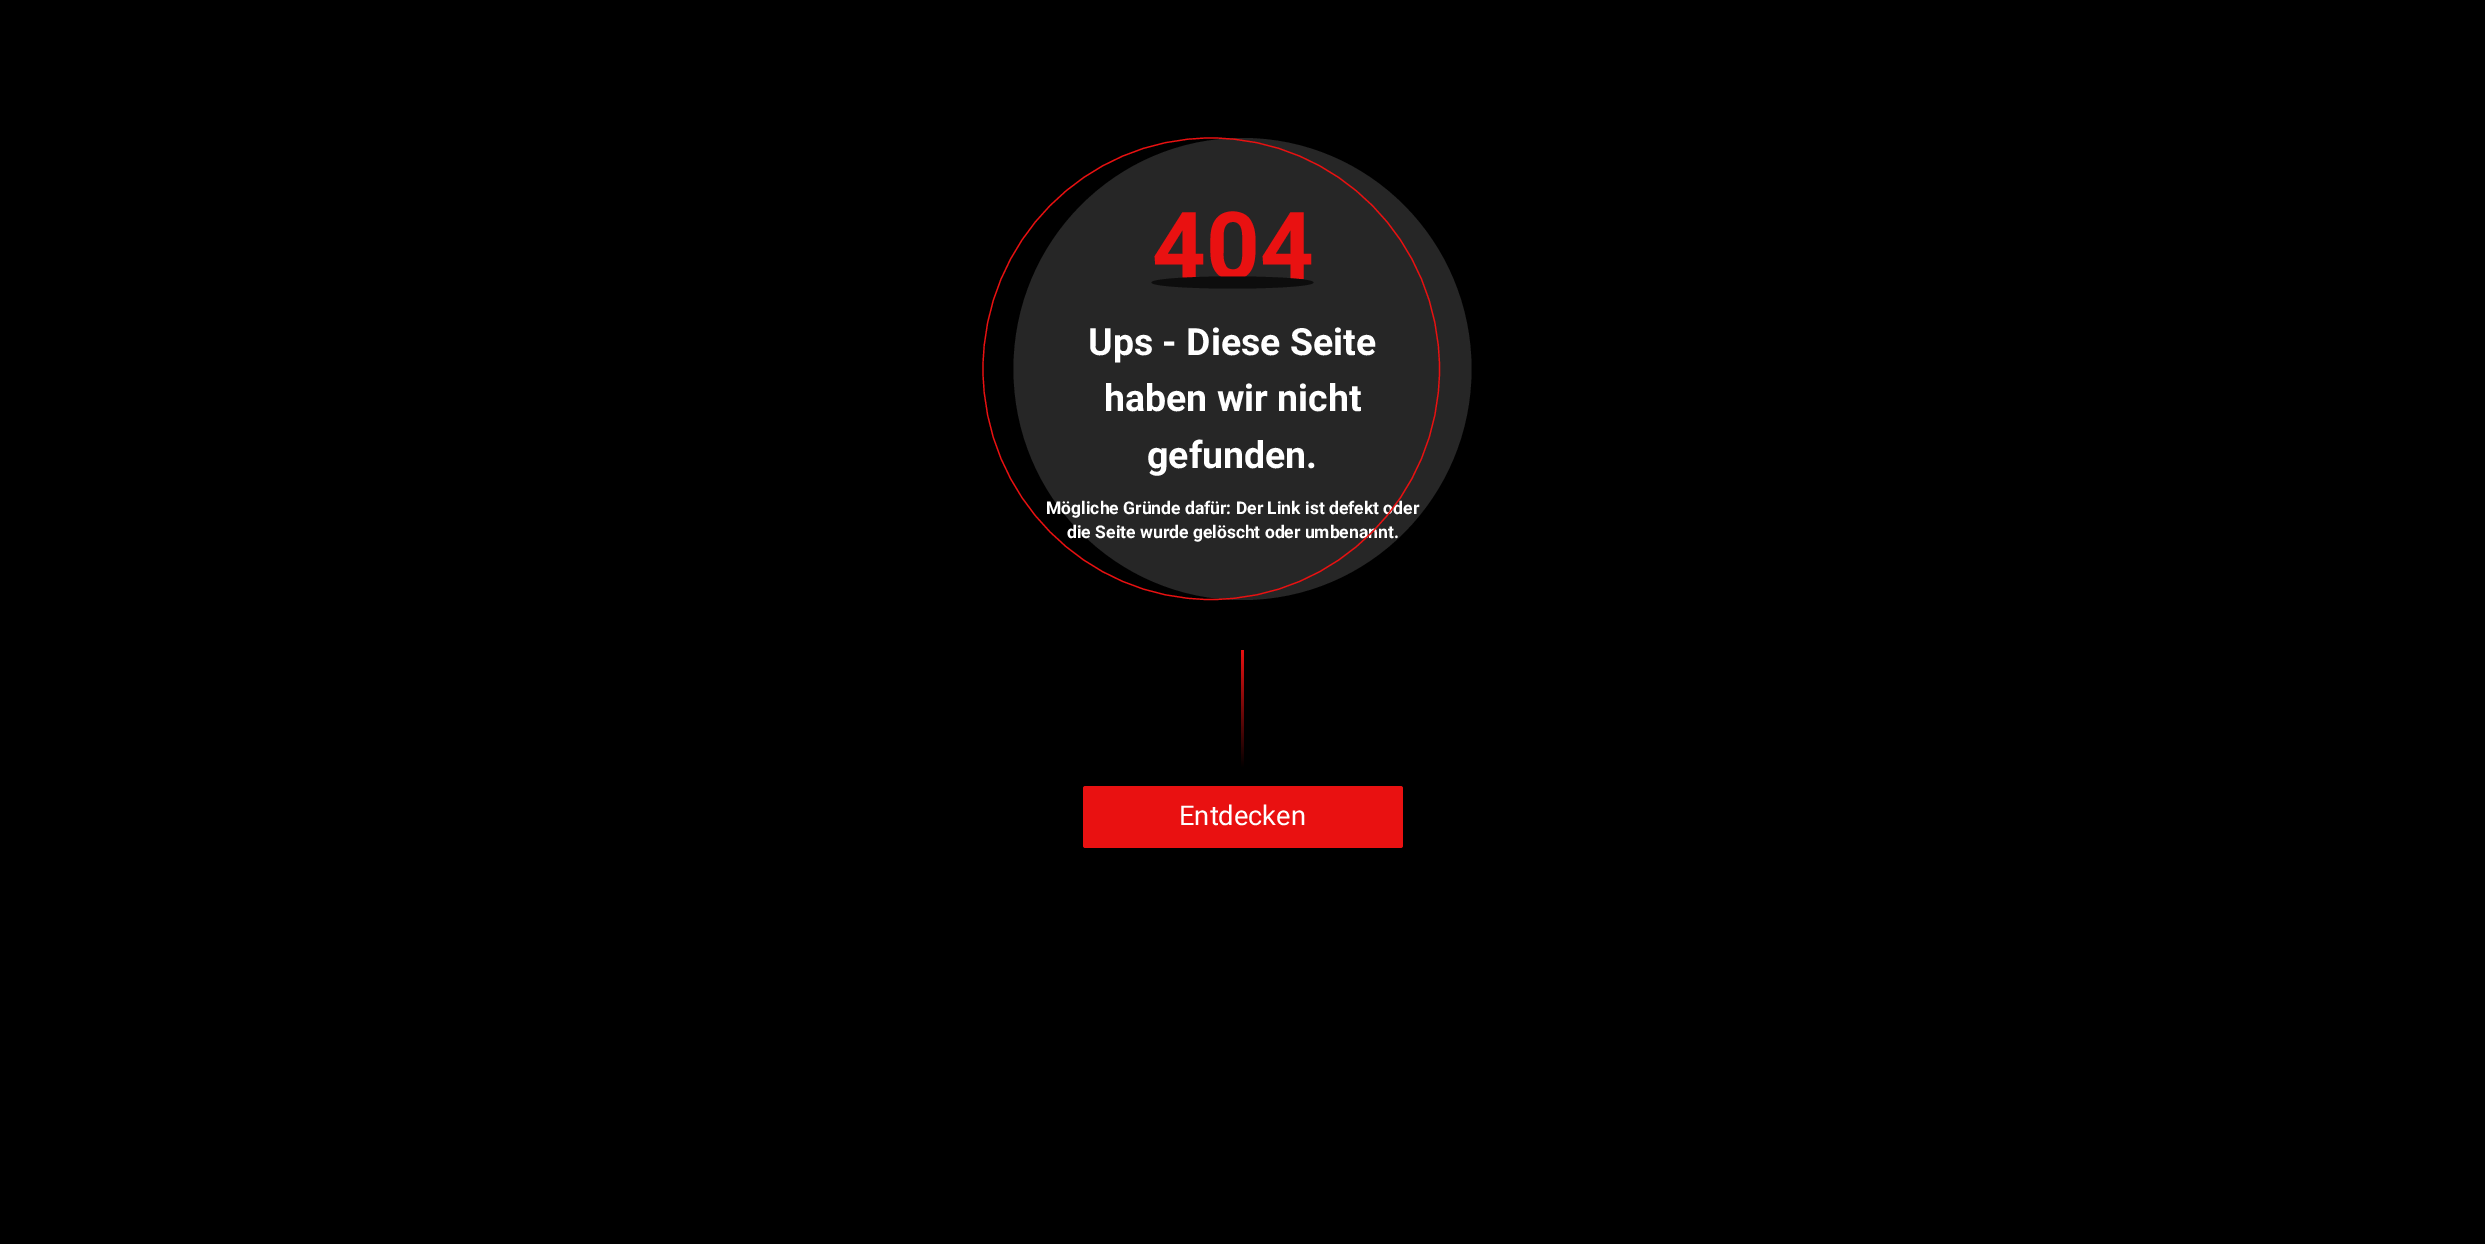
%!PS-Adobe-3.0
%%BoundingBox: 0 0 2485 1244
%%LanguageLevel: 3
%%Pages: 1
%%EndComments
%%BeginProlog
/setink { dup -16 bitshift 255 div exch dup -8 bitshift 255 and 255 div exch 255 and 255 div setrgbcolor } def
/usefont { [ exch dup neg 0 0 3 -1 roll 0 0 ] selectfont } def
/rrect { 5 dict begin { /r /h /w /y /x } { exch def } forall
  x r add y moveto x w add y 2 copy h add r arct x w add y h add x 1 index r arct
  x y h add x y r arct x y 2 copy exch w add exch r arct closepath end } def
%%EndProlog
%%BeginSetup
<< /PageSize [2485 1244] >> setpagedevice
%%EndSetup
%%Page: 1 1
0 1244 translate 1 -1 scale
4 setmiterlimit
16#000000 setink
0 0 2485 1244 rectfill
16#262626 setink
1242.5 138 moveto 1369 138 1471.5 241.5 1471.5 369 curveto 1471.5 496.5 1369 600 1242.5 600 curveto 1116 600 1013.5 496.5 1013.5 369 curveto 1013.5 241.5 1116 138 1242.5 138 curveto closepath fill
/Roboto-Bold 37.5 usefont
16#FFFFFF setink
[
    [(Ups - Diese Seite) 1088 355]
    [(haben wir nicht) 1104 411]
    [(gefunden.) 1147 468]
] { aload pop moveto show } forall
/Roboto-Bold 17.5 usefont
1046 514 moveto (Mögliche Gründe dafür: Der Link ist defekt oder) show
1067 538 moveto (die Seite wurde gelöscht oder umbenannt.) show
16#E91111 setink
1.2 setlinewidth
1211 138 moveto 1337 138 1439.5 241.5 1439.5 369 curveto 1439.5 496 1337 599.5 1211 599.5 curveto 1085.5 599.5 983 496 983 369 curveto 983 241.5 1085.5 138 1211 138 curveto closepath stroke
/Roboto-Bold 94 usefont
1152 279 moveto (404) show
16#0D0D0D setink
1232.5 276.5 moveto 1277 276.5 1313.5 279 1313.5 282.5 curveto 1313.5 286 1277 288.5 1232.5 288.5 curveto 1188 288.5 1151.5 286 1151.5 282.5 curveto 1151.5 279 1188 276.5 1232.5 276.5 curveto closepath fill
gsave 1241 650 moveto 1244 650 lineto 1244 768 lineto 1241 768 lineto closepath clip newpath
<< /ShadingType 2 /ColorSpace /DeviceRGB /Coords [1243 650 1243 768] /Extend [true true] /Function << /FunctionType 2 /Domain [0 1] /C0 [0.914 0.067 0.067] /C1 [0 0 0] /N 1 >> >> shfill grestore
16#E91111 setink
1083 786 320 62 2.5 rrect fill
/Roboto-Regular 27.25 usefont
16#FFFFFF setink
1179 825 moveto (Entdecken) show
showpage
%%EOF
